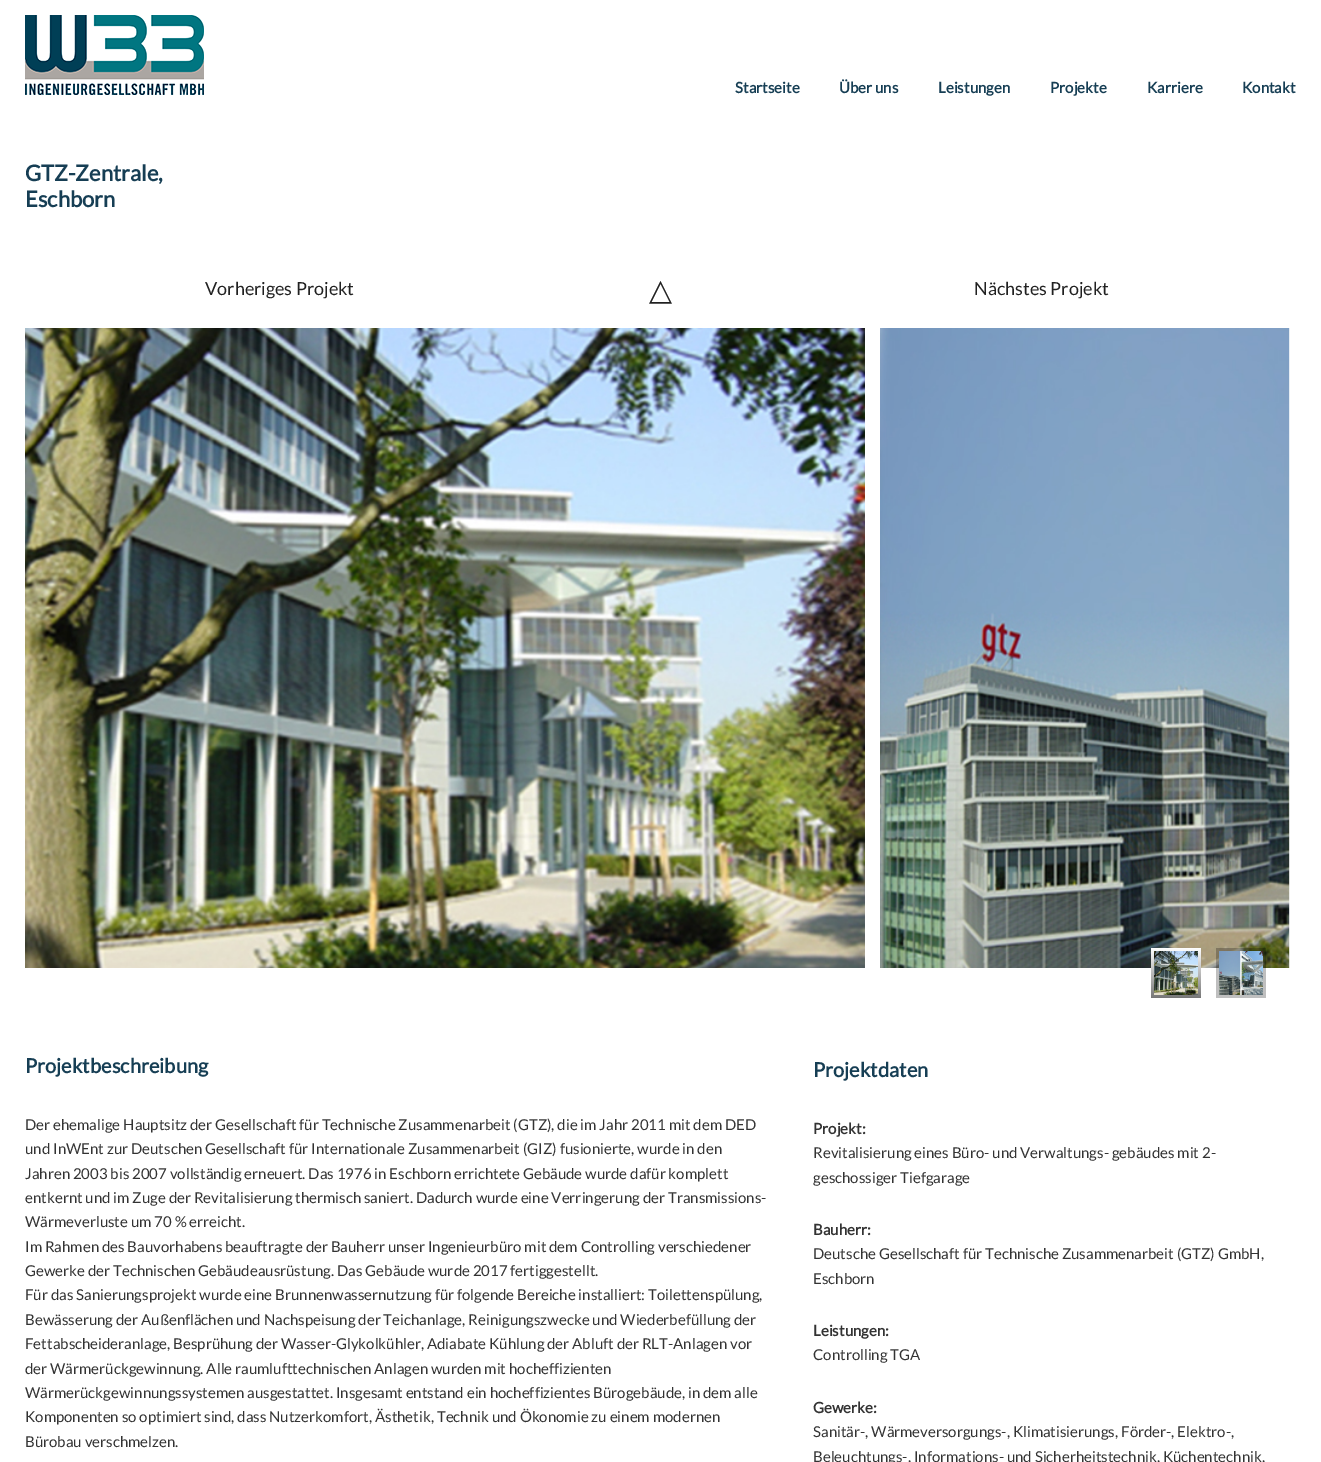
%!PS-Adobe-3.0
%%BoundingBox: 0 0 1321 1462
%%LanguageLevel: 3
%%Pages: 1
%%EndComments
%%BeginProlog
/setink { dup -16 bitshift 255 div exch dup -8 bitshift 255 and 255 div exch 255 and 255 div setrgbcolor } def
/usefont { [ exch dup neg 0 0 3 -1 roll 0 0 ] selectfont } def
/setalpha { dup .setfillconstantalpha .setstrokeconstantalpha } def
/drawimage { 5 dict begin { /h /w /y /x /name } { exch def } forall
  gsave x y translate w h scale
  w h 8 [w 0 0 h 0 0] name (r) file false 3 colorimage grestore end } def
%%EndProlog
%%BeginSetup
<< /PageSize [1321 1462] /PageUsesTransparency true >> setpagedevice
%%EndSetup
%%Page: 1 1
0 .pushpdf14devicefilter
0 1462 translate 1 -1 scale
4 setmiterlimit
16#FFFFFF setink
0 0 1321 1462 rectfill
(img1.raw) 25 15 179 80 drawimage
/Lato-Bold 15 usefont
16#163E54 setink
[
    [(Startseite) 735 93]
    [(Über uns) 839 93]
    [(Leistungen) 938 93]
    [(Projekte) 1050 93]
    [(Karriere) 1147 93]
    [(Kontakt) 1242 93]
] { aload pop moveto show } forall
/Lato-Bold 22 usefont
25 181 moveto (GTZ-Zentrale,) show
25 207 moveto (Eschborn) show
/Lato-Regular 18 usefont
16#212121 setink
205 295 moveto (Vorheriges Projekt) show
/DejaVuSans-Regular 30 usefont
649 300 moveto (△) show
/Lato-Regular 18 usefont
974 295 moveto (Nächstes Projekt) show
(img2.raw) 25 328 840 640 drawimage
(img3.raw) 880 328 410 640 drawimage
gsave 1151 948 moveto 1201 948 lineto 1201 998 lineto 1151 998 lineto closepath clip newpath
<< /ShadingType 2 /ColorSpace /DeviceRGB /Coords [1176 948 1176 998] /Extend [true true] /Function << /FunctionType 2 /Domain [0 1] /C0 [1 1 1] /C1 [0.467 0.467 0.467] /N 1 >> >> shfill grestore
(img4.raw) 1154 951 44 44 drawimage
0.25 setalpha
16#000000 setink
1216 948 50 50 rectfill
1 setalpha
(img5.raw) 1219 951 44 44 drawimage
/Lato-Bold 20 usefont
16#163E54 setink
25 1073 moveto (Projektbeschreibung) show
813 1077 moveto (Projektdaten) show
/Lato-Bold 15 usefont
16#333333 setink
813 1134 moveto (Projekt:) show
/Lato-Regular 15 usefont
813 1158 moveto (Revitalisierung eines Büro- und Verwaltungs- gebäudes mit 2-) show
813 1183 moveto (geschossiger Tiefgarage) show
/Lato-Bold 15 usefont
813 1235 moveto (Bauherr:) show
/Lato-Regular 15 usefont
813 1259 moveto (Deutsche Gesellschaft für Technische Zusammenarbeit \(GTZ\) GmbH,) show
813 1284 moveto (Eschborn) show
/Lato-Bold 15 usefont
813 1336 moveto (Leistungen:) show
/Lato-Regular 15 usefont
813 1360 moveto (Controlling TGA) show
/Lato-Bold 15 usefont
813 1413 moveto (Gewerke:) show
/Lato-Regular 15 usefont
[
    [(Sanitär-, Wärmeversorgungs-, Klimatisierungs, Förder-, Elektro-,) 813 1437]
    [(Beleuchtungs-, Informations- und Sicherheitstechnik, Küchentechnik,) 813 1462]
    [(Der ehemalige Hauptsitz der Gesellschaft für Technische Zusammenarbeit \(GTZ\), die im Jahr 2011 mit dem DED) 25 1130]
    [(und InWEnt zur Deutschen Gesellschaft für Internationale Zusammenarbeit \(GIZ\) fusionierte, wurde in den) 25 1154]
    [(Jahren 2003 bis 2007 vollständig erneuert. Das 1976 in Eschborn errichtete Gebäude wurde dafür komplett) 25 1179]
    [(entkernt und im Zuge der Revitalisierung thermisch saniert. Dadurch wurde eine Verringerung der Transmissions-) 25 1203]
    [(Wärmeverluste um 70 % erreicht.) 25 1227]
    [(Im Rahmen des Bauvorhabens beauftragte der Bauherr unser Ingenieurbüro mit dem Controlling verschiedener) 25 1252]
    [(Gewerke der Technischen Gebäudeausrüstung. Das Gebäude wurde 2017 fertiggestellt.) 25 1276]
    [(Für das Sanierungsprojekt wurde eine Brunnenwassernutzung für folgende Bereiche installiert: Toilettenspülung,) 25 1300]
    [(Bewässerung der Außenflächen und Nachspeisung der Teichanlage, Reinigungszwecke und Wiederbefüllung der) 25 1325]
    [(Fettabscheideranlage, Besprühung der Wasser-Glykolkühler, Adiabate Kühlung der Abluft der RLT-Anlagen vor) 25 1349]
    [(der Wärmerückgewinnung. Alle raumlufttechnischen Anlagen wurden mit hocheffizienten) 25 1374]
    [(Wärmerückgewinnungssystemen ausgestattet. Insgesamt entstand ein hocheffizientes Bürogebäude, in dem alle) 25 1398]
    [(Komponenten so optimiert sind, dass Nutzerkomfort, Ästhetik, Technik und Ökonomie zu einem modernen) 25 1422]
    [(Bürobau verschmelzen.) 25 1447]
] { aload pop moveto show } forall
.poppdf14devicefilter showpage
%%EOF
